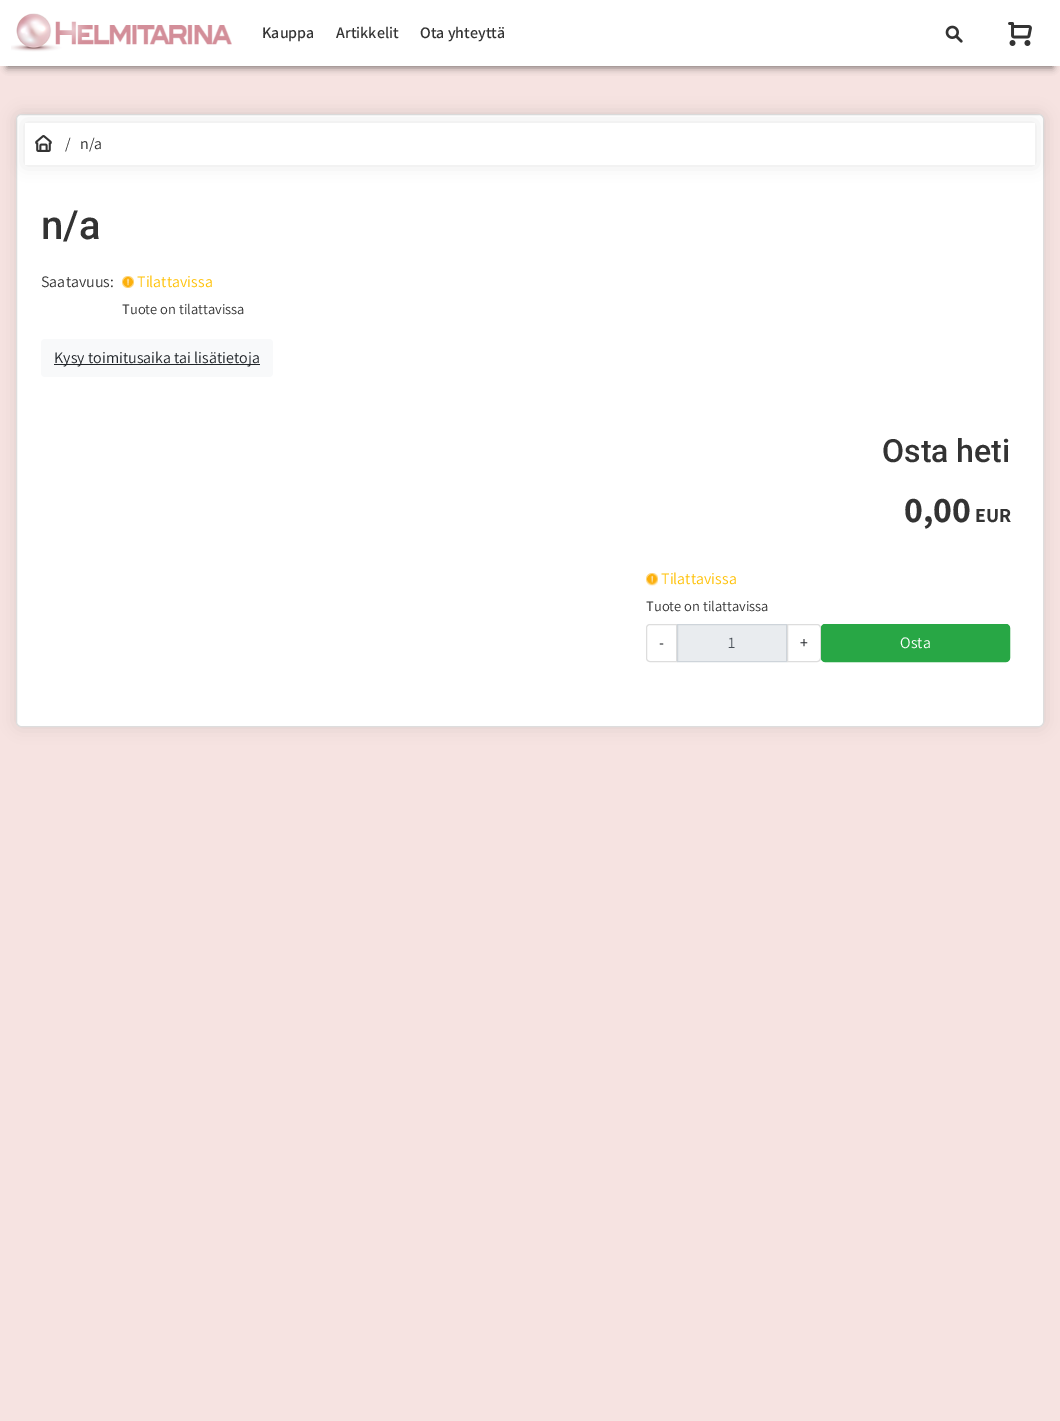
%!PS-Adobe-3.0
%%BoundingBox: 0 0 1060 1421
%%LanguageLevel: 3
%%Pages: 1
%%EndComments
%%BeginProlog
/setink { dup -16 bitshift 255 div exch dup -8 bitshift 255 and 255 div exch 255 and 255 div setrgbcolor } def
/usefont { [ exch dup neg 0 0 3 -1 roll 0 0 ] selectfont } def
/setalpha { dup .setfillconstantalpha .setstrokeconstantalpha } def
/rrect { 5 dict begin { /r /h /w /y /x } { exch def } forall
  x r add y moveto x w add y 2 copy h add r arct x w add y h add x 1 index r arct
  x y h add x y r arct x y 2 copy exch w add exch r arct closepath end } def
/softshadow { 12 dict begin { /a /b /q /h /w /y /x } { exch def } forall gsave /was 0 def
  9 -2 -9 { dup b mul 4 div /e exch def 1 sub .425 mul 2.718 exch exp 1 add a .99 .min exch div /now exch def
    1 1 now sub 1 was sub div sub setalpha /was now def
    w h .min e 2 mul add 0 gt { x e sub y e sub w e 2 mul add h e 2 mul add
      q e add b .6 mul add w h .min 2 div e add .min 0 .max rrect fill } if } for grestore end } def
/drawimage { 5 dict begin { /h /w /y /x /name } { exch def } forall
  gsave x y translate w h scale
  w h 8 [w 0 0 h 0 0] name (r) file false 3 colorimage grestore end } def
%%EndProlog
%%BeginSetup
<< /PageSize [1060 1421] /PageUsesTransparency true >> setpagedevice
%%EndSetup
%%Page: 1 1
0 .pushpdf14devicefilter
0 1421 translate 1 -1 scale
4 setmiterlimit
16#F6E3E1 setink
0 0 1060 1421 rectfill
16#000000 setink
7 16 1046 52 0 3.5 0.44 softshadow
16#FFFFFF setink
0 0 1060 66 rectfill
(img1.raw) 11 13 221 39 drawimage
/Assistant-SemiBold 16 usefont
16#333333 setink
[
    [(Kauppa) 262 38]
    [(Artikkelit) 336 38]
    [(Ota yhteyttä) 420 38]
] { aload pop moveto show } forall
(img2.raw) 945 25 18 18 drawimage
(img3.raw) 1008 22 24 24 drawimage
16#000000 setink
16 114 1028 613 5 8 0.1 softshadow
16#FFFFFF setink
16.5 114.5 1027 612 4.5 rrect gsave fill grestore
16#DDDDDD setink
stroke
gsave
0 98 moveto 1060 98 lineto 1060 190 lineto 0 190 lineto closepath 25 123 moveto 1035 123 lineto 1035 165 lineto 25 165 lineto closepath eoclip newpath
16#000000 setink
25 123 1010 42 0 8 0.1 softshadow
grestore
(img4.raw) 35 135 17 17 drawimage
/Assistant-Regular 16 usefont
16#333333 setink
65 149 moveto (/) show
80 149 moveto (n/a) show
/Roboto-Medium 40 usefont
41 239 moveto (n/a) show
/Assistant-Regular 16 usefont
41 287 moveto (Saatavuus:) show
(img5.raw) 122 276 12 12 drawimage
16#FFC107 setink
137 287 moveto (Tilattavissa) show
/Assistant-Regular 14.5 usefont
16#333333 setink
122 314 moveto (Tuote on tilattavissa) show
16#F8F9FA setink
41 339 232 38 4 rrect fill
16#212529 setink
54 364 206 1 rectfill
/Assistant-Regular 16 usefont
54 363 moveto (Kysy toimitusaika tai lisätietoja) show
/Roboto-Medium 32 usefont
16#333333 setink
882 462 moveto (Osta heti) show
/Assistant-Bold 36 usefont
904 522 moveto (0,00) show
/Assistant-Bold 20 usefont
975 522 moveto (EUR) show
(img6.raw) 646 573 12 13 drawimage
/Assistant-Regular 16 usefont
16#FFC107 setink
661 584 moveto (Tilattavissa) show
/Assistant-Regular 14.5 usefont
16#333333 setink
646 611 moveto (Tuote on tilattavissa) show
16#DDDDDD setink
650 624.5 moveto 676.5 624.5 lineto 676.5 661.5 lineto 650 661.5 lineto 648 661.5 646.5 660 646.5 658 curveto 646.5 628 lineto 646.5 626 648 624.5 650 624.5 curveto closepath stroke
/Assistant-Regular 16 usefont
16#212529 setink
659 648 moveto (-) show
16#E9ECEF setink
677.5 624.5 moveto 786.5 624.5 lineto 786.5 661.5 lineto 677.5 661.5 lineto closepath gsave fill grestore
16#CED4DA setink
stroke
16#495057 setink
728 648 moveto (1) show
16#DDDDDD setink
787.5 624.5 moveto 817 624.5 lineto 819 624.5 820.5 626 820.5 628 curveto 820.5 658 lineto 820.5 660 819 661.5 817 661.5 curveto 787.5 661.5 lineto closepath stroke
16#212529 setink
800 648 moveto (+) show
16#28A745 setink
821.5 624.5 188 37 3.5 rrect gsave fill grestore
stroke
16#FFFFFF setink
900 648 moveto (Osta) show
.poppdf14devicefilter showpage
%%EOF
